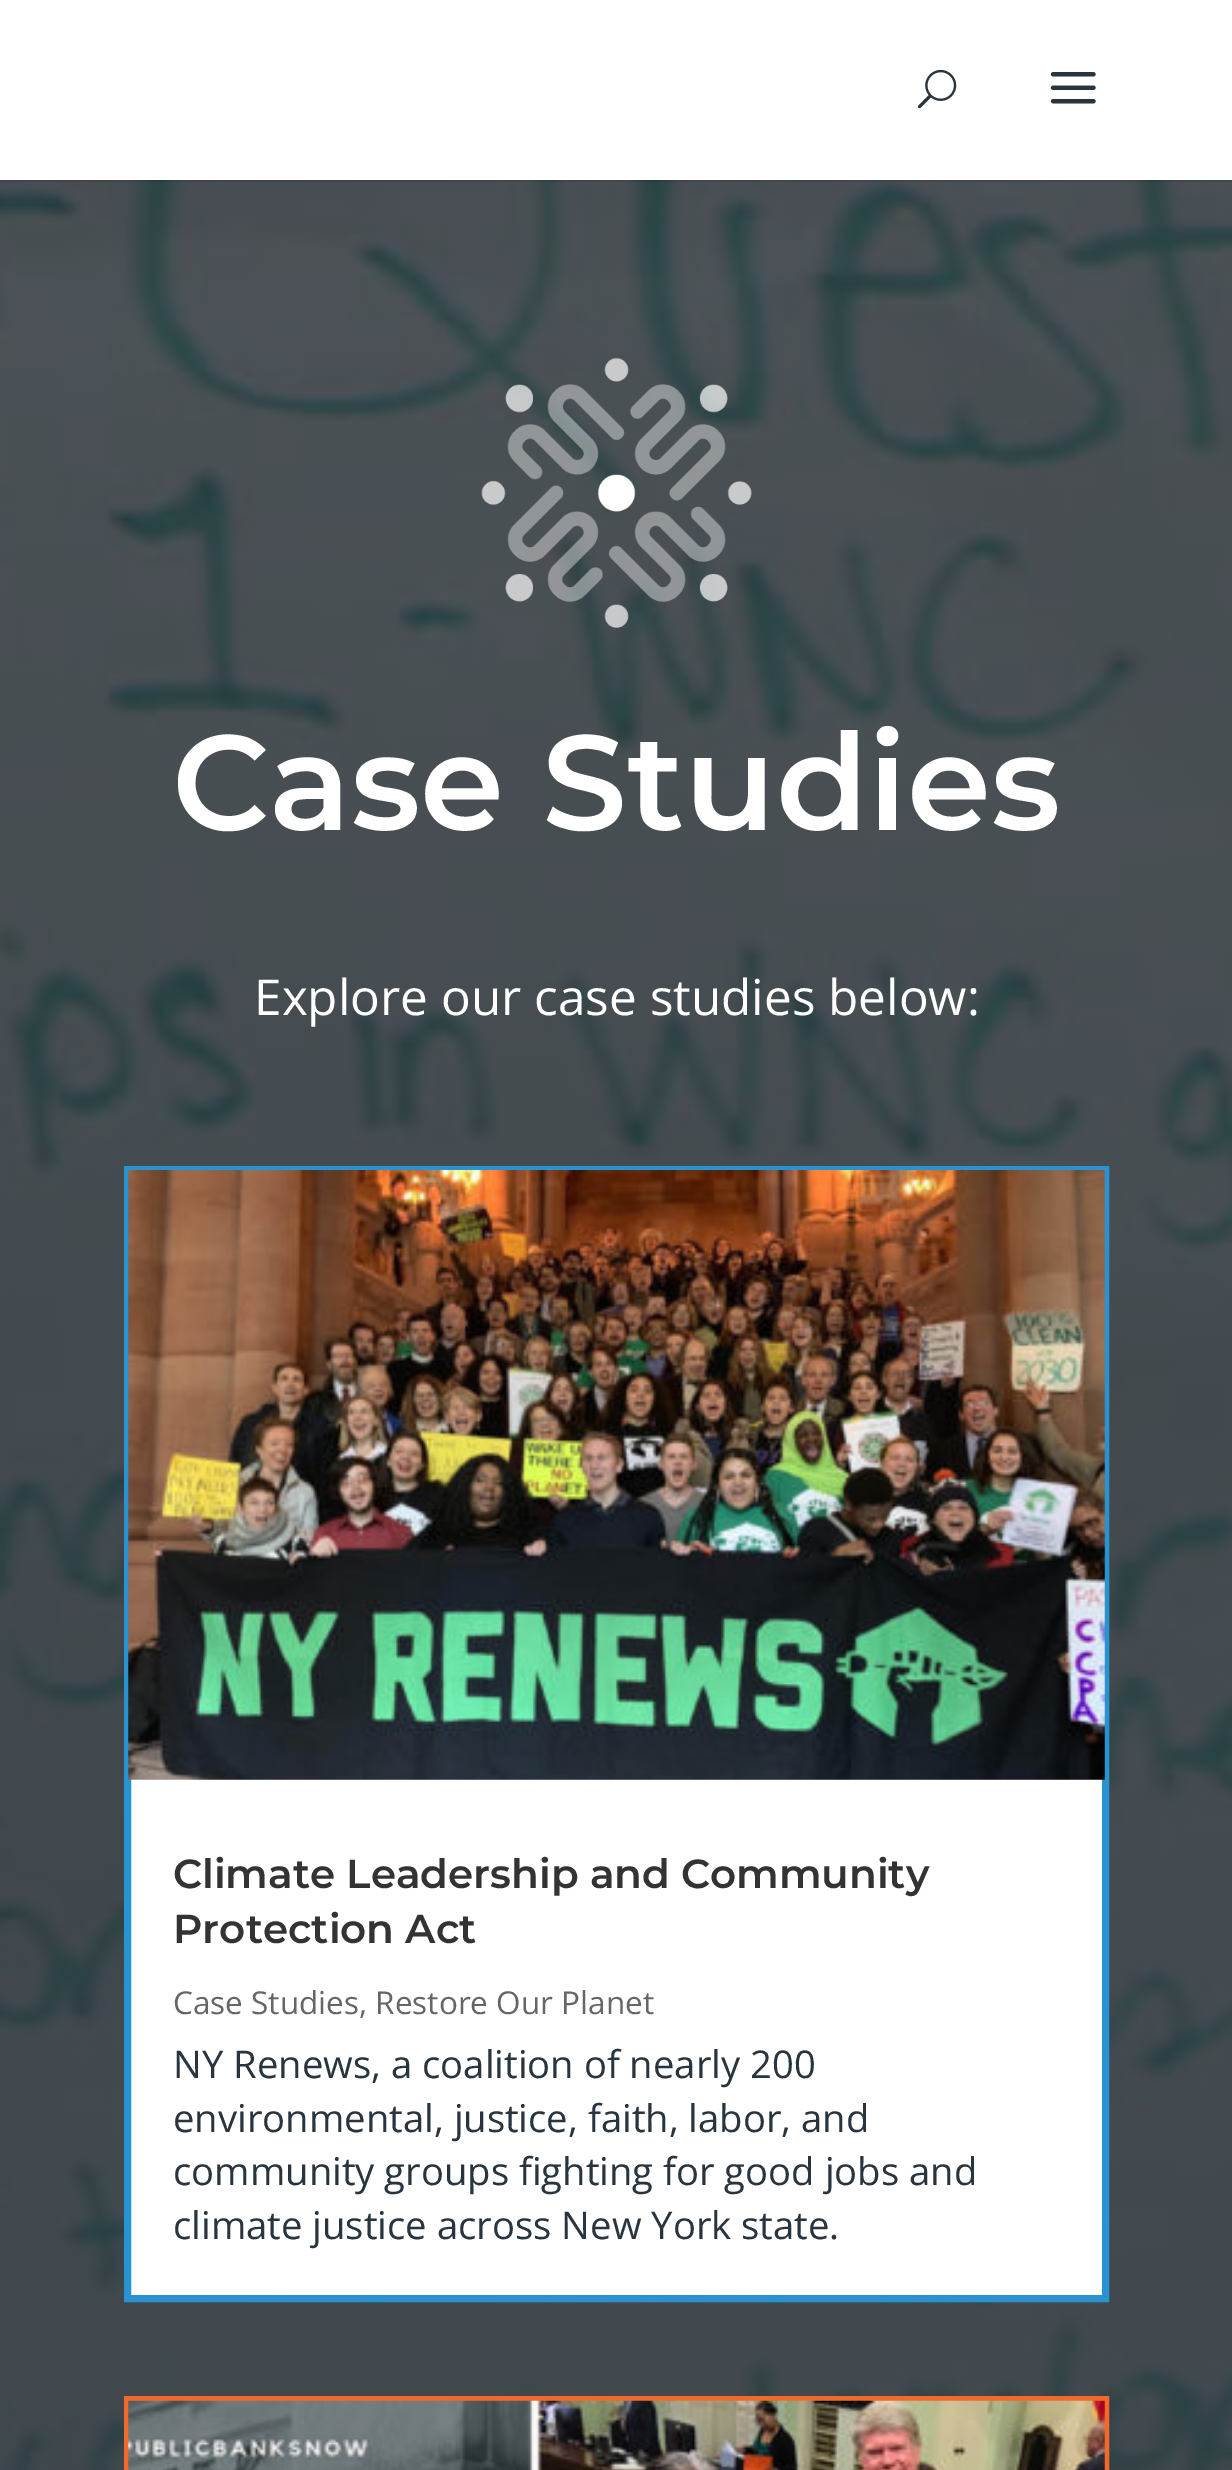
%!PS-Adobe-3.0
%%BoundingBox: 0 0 1232 2470
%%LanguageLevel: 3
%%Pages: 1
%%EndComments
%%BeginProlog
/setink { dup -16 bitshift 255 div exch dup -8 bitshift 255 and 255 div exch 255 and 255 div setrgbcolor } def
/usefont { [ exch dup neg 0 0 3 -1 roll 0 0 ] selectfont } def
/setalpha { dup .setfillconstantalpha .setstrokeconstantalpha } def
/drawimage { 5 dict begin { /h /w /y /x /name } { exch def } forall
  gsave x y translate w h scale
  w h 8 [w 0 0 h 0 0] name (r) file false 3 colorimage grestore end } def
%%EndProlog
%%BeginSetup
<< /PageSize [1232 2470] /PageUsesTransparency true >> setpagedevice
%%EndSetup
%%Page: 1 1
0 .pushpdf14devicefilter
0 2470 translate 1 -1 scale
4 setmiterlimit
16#FFFFFF setink
0 0 1232 2470 rectfill
(img3.raw) 0 180 1232 2290 drawimage
0.1 setalpha
16#000000 setink
0 180 1232 2 rectfill
1 setalpha
(img1.raw) 917 69 40 40 drawimage
(img2.raw) 1050 72 46 32 drawimage
(img4.raw) 481 357 271 271 drawimage
/Montserrat-SemiBold 135 usefont
16#FFFFFF setink
172 830 moveto (Case Studies) show
/OpenSans-Regular 49.5 usefont
254 1015 moveto (Explore our case studies below:) show
131 1779 971 516 rectfill
16#2992D0 setink
7 setlinewidth
127.5 1169.5 978 1129 rectstroke
(img5.raw) 128 1170 977 610 drawimage
/Montserrat-SemiBold 40.5 usefont
16#333333 setink
173 1888 moveto (Climate Leadership and Community) show
173 1943 moveto (Protection Act) show
/OpenSans-Regular 31.5 usefont
16#666666 setink
173 2014 moveto (Case Studies, Restore Our Planet) show
/OpenSans-Regular 38.25 usefont
16#29353E setink
[
    [(NY Renews, a coalition of nearly 200) 173 2078]
    [(environmental, justice, faith, labor, and) 173 2132]
    [(community groups fighting for good jobs and) 173 2185]
    [(climate justice across New York state.) 173 2239]
] { aload pop moveto show } forall
16#F2692B setink
127.5 2399.5 978 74 rectstroke
(img6.raw) 128 2400 977 70 drawimage
.poppdf14devicefilter showpage
%%EOF
